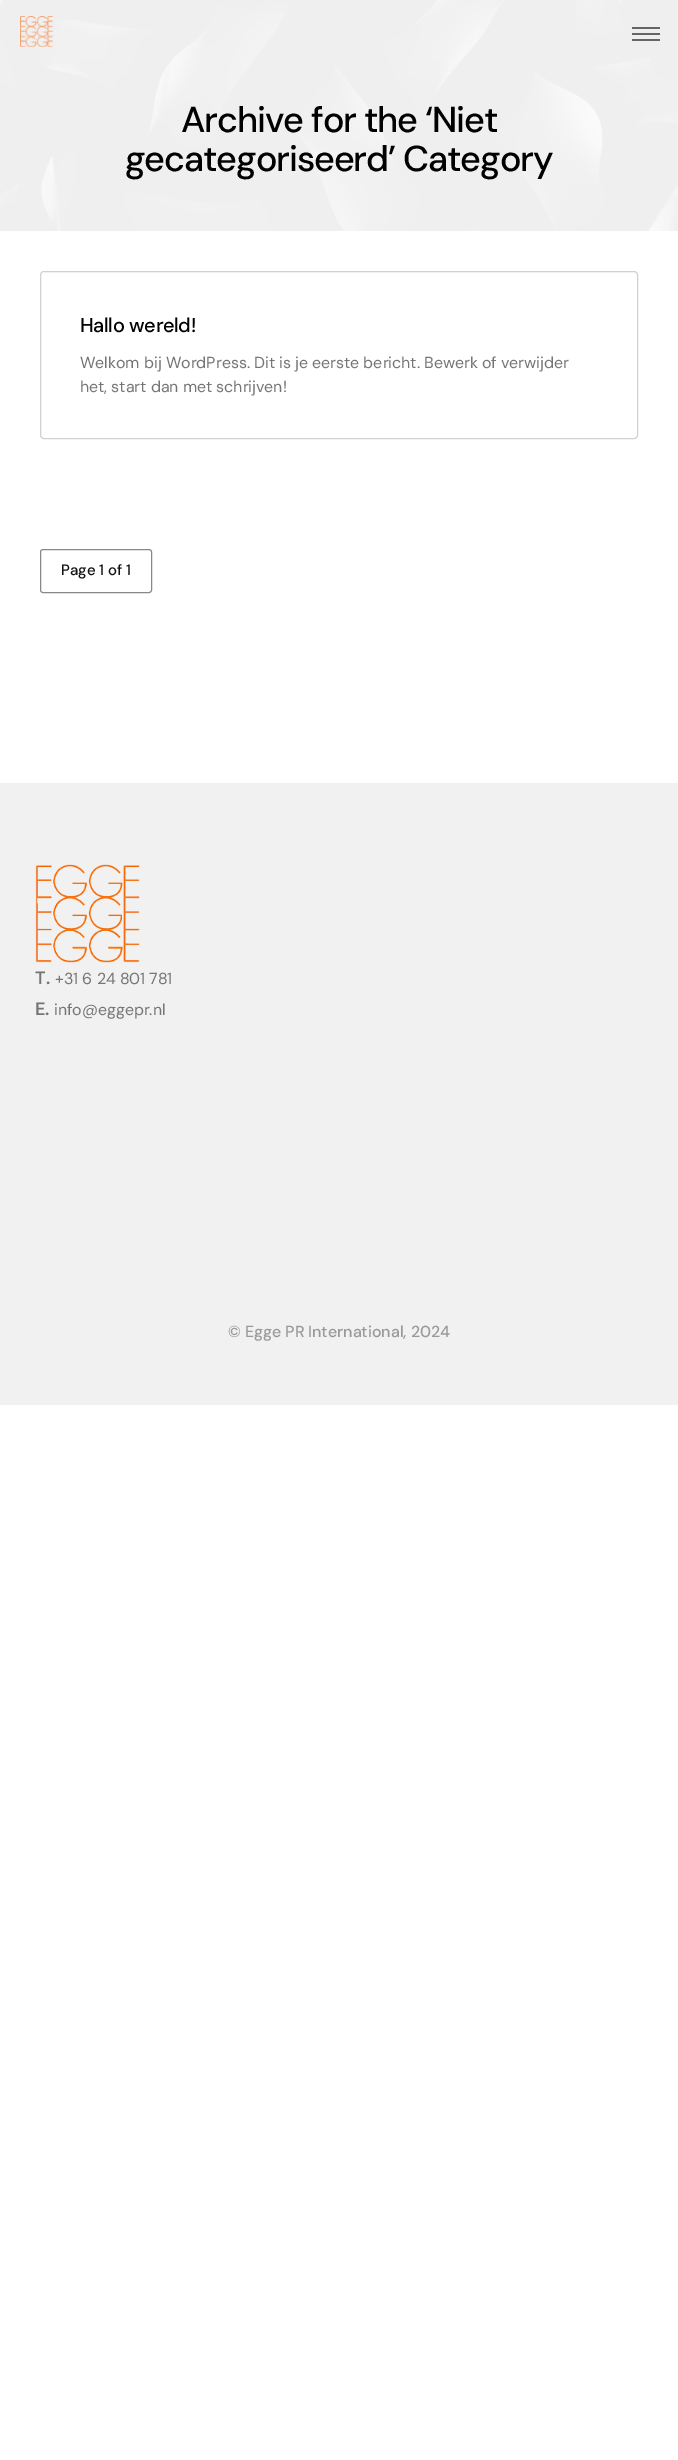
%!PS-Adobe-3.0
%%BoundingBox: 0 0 678 2460
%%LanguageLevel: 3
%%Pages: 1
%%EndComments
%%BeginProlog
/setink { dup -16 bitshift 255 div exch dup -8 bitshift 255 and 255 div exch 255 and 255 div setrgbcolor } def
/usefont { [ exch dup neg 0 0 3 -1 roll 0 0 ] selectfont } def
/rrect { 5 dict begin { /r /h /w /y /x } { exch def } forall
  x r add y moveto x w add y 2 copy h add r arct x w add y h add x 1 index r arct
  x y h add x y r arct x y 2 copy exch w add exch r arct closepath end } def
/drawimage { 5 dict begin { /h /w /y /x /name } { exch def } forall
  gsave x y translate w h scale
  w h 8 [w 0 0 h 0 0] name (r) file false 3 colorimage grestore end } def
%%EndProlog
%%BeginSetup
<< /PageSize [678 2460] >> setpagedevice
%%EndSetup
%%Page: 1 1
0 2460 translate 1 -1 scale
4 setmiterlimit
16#FFFFFF setink
0 0 678 2460 rectfill
(img2.raw) 0 0 678 231 drawimage
(img1.raw) 20 16 33 31 drawimage
[
    [632 27 28 2 16#656565]
    [632 33 28 2 16#656565]
    [632 39 28 2 16#656565]
] { aload pop setink rectfill } forall
/DMSans-Medium 36 usefont
16#010101 setink
181 132 moveto -1.1 0 (Archive for the ‘Niet) ashow
125 171 moveto -1.1 0 (gecategoriseerd’ Category) ashow
16#D1D1D1 setink
40.5 271.5 597 167 3.5 rrect stroke
/DMSans-Medium 20 usefont
16#010101 setink
80 332 moveto -0.4 0 (Hallo wereld!) ashow
/DMSans-Regular 16 usefont
16#757575 setink
80 368 moveto -0.05 0 (Welkom bij WordPress. Dit is je eerste bericht. Bewerk of verwijder) ashow
80 392 moveto -0.05 0 (het, start dan met schrijven!) ashow
16#888888 setink
40.5 549.5 111 43 2.5 rrect stroke
/DMSans-Medium 15 usefont
16#111111 setink
61 575 moveto -0.05 0 (Page 1 of 1) ashow
16#F1F1F1 setink
0 783 678 622 rectfill
(img3.raw) 35 864 105 99 drawimage
/DMSans-SemiBold 18 usefont
16#757575 setink
35 984 moveto -0.05 0 (T.) ashow
/DMSans-Regular 16 usefont
55 984 moveto -0.05 0 (+31 6 24 801 781) ashow
/DMSans-SemiBold 18 usefont
35 1015 moveto -0.05 0 (E.) ashow
/DMSans-Regular 16 usefont
54 1015 moveto -0.05 0 (info@eggepr.nl) ashow
/DMSans-Medium 16 usefont
16#999999 setink
228 1337 moveto -0.05 0 (© Egge PR International, 2024) ashow
showpage
%%EOF
